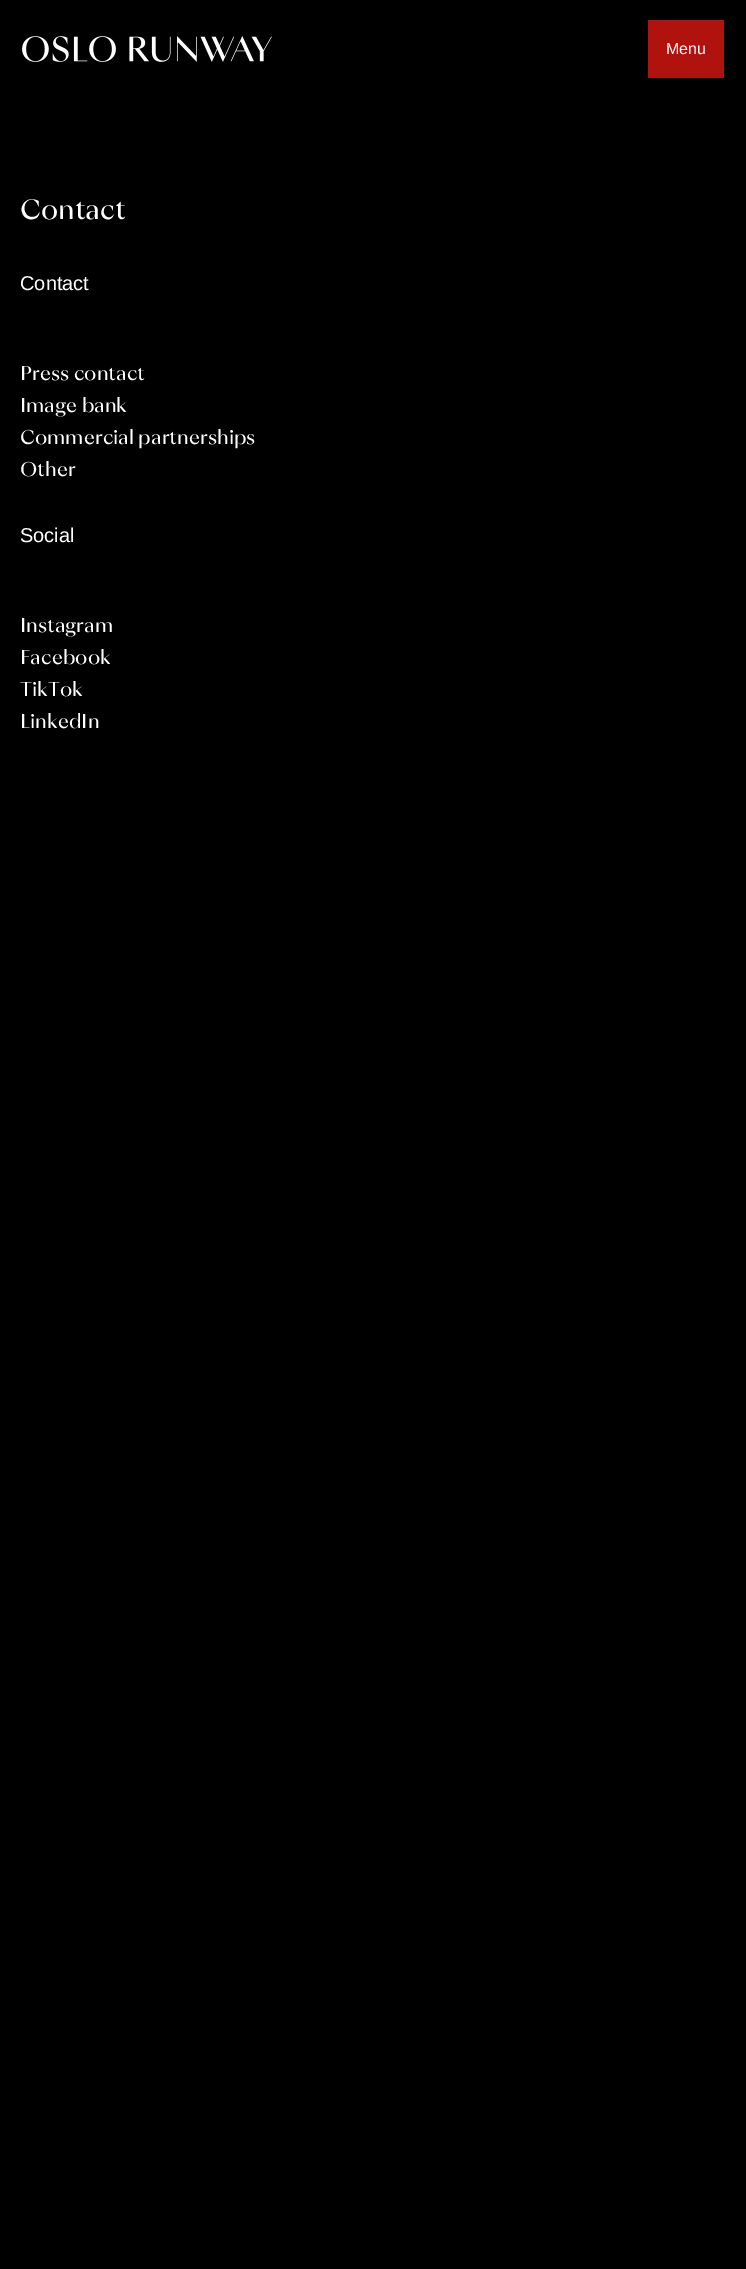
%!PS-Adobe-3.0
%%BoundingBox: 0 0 746 2269
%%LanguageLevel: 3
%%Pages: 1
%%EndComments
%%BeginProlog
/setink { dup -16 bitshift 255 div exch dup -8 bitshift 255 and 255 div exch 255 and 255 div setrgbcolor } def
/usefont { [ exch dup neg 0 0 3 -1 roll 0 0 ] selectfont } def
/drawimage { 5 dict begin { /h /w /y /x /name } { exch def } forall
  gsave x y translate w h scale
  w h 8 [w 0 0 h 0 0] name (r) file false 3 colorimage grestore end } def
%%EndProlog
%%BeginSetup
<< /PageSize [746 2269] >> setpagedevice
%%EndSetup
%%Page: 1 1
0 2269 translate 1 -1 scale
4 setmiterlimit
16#000000 setink
0 0 746 2269 rectfill
(img1.raw) 22 36 250 26 drawimage
16#B0120E setink
648 20 76 58 rectfill
/LiberationSans-Regular 16 usefont
16#FFFFFF setink
666 54 moveto (Menu) show
/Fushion-Regular 28 usefont
20 219 moveto (Contact) show
/LiberationSans-Regular 20 usefont
20 290 moveto (Contact) show
/Fushion-Regular 20 usefont
[
    [(Press contact) 20 380]
    [(Image bank) 20 412]
    [(Commercial partnerships) 20 444]
    [(Other) 20 476]
] { aload pop moveto show } forall
/LiberationSans-Regular 20 usefont
20 542 moveto (Social) show
/Fushion-Regular 20 usefont
[
    [(Instagram) 20 632]
    [(Facebook) 20 664]
    [(TikTok) 20 696]
    [(LinkedIn) 20 728]
] { aload pop moveto show } forall
showpage
%%EOF
